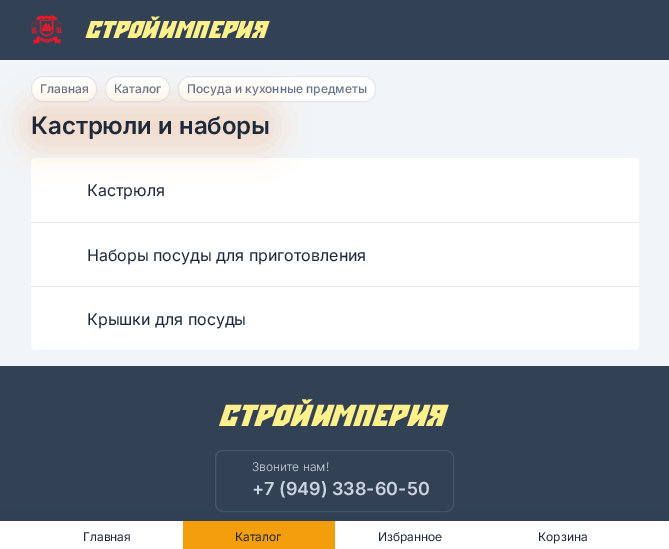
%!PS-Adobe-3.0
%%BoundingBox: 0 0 669 549
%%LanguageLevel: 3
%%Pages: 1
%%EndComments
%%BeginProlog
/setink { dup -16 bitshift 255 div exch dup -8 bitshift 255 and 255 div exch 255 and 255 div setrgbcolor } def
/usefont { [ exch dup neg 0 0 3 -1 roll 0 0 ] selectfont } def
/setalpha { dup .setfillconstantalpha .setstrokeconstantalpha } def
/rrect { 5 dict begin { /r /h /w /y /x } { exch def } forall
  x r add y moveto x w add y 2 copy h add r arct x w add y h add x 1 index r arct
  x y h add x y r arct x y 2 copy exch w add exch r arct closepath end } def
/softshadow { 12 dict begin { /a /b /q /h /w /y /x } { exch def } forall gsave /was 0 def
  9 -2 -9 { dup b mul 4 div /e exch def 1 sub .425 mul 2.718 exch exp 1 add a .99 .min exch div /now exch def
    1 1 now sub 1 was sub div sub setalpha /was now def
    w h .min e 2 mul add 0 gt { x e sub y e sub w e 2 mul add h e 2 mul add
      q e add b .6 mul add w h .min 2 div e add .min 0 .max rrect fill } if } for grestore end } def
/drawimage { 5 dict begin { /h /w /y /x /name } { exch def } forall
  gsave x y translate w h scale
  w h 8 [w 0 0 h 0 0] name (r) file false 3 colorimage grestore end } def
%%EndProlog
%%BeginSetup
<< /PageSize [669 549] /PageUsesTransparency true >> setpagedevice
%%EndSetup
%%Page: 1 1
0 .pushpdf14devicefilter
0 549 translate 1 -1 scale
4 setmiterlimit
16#F1F5F9 setink
0 0 669 549 rectfill
16#334155 setink
0 0 669 60 rectfill
(img1.raw) 31 15 32 30 drawimage
/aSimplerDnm-Bold 24 usefont
16#FEF08A setink
87 38 moveto (Стройимперия) show
16#FFFFFF setink
31.5 76.5 65 25 11.5 rrect gsave fill grestore
16#E5E7EB setink
stroke
/Inter-Medium 12 usefont
16#64748B setink
40 93 moveto (Главная) show
16#FFFFFF setink
105.5 76.5 64 25 11.5 rrect gsave fill grestore
16#E5E7EB setink
stroke
16#64748B setink
114 93 moveto (Каталог) show
16#FFFFFF setink
178.5 76.5 197 25 11.5 rrect gsave fill grestore
16#E5E7EB setink
stroke
16#64748B setink
187 93 moveto (Посуда и кухонные предметы) show
16#FFFFFF setink
35 158 moveto 635 158 lineto 637 158 639 160 639 162 curveto 639 222 lineto 31 222 lineto 31 162 lineto 31 160 33 158 35 158 curveto closepath fill
16#F97B17 setink
23 102 255 48 24 16 0.2 softshadow
/Inter-SemiBold 24 usefont
16#1E293B setink
31 134 moveto (Кастрюли и наборы) show
/Inter-Regular 16 usefont
87 196 moveto (Кастрюля) show
16#FFFFFF setink
31 223 608 63 rectfill
16#E5E7EB setink
31 222 608 1 rectfill
16#1E293B setink
87 261 moveto (Наборы посуды для приготовления) show
16#FFFFFF setink
31 287 moveto 639 287 lineto 639 346 lineto 639 348 637 350 635 350 curveto 35 350 lineto 33 350 31 348 31 346 curveto closepath fill
16#E5E7EB setink
31 286 608 1 rectfill
16#1E293B setink
87 325 moveto (Крышки для посуды) show
16#334155 setink
0 366 669 155 rectfill
/aSimplerDnm-Bold 30 usefont
16#FEF08A setink
221 426 moveto (Стройимперия) show
16#475569 setink
215.5 450.5 238 61 7.5 rrect stroke
/Inter-Light 12 usefont
16#CBD5E1 setink
252 471 moveto (Звоните нам!) show
/Inter-SemiBold 18 usefont
252 495 moveto (+7 \(949\) 338-60-50) show
16#223C50 setink
0 512 669 28 0 10 0.2 softshadow
16#FFFFFF setink
0 521 669 28 rectfill
/Inter-Regular 12 usefont
16#1E293B setink
83 541 moveto (Главная) show
16#F59E0B setink
183 521 152 28 rectfill
16#1E293B setink
[
    [(Каталог) 235 541]
    [(Избранное) 378 541]
    [(Корзина) 538 541]
] { aload pop moveto show } forall
.poppdf14devicefilter showpage
%%EOF
